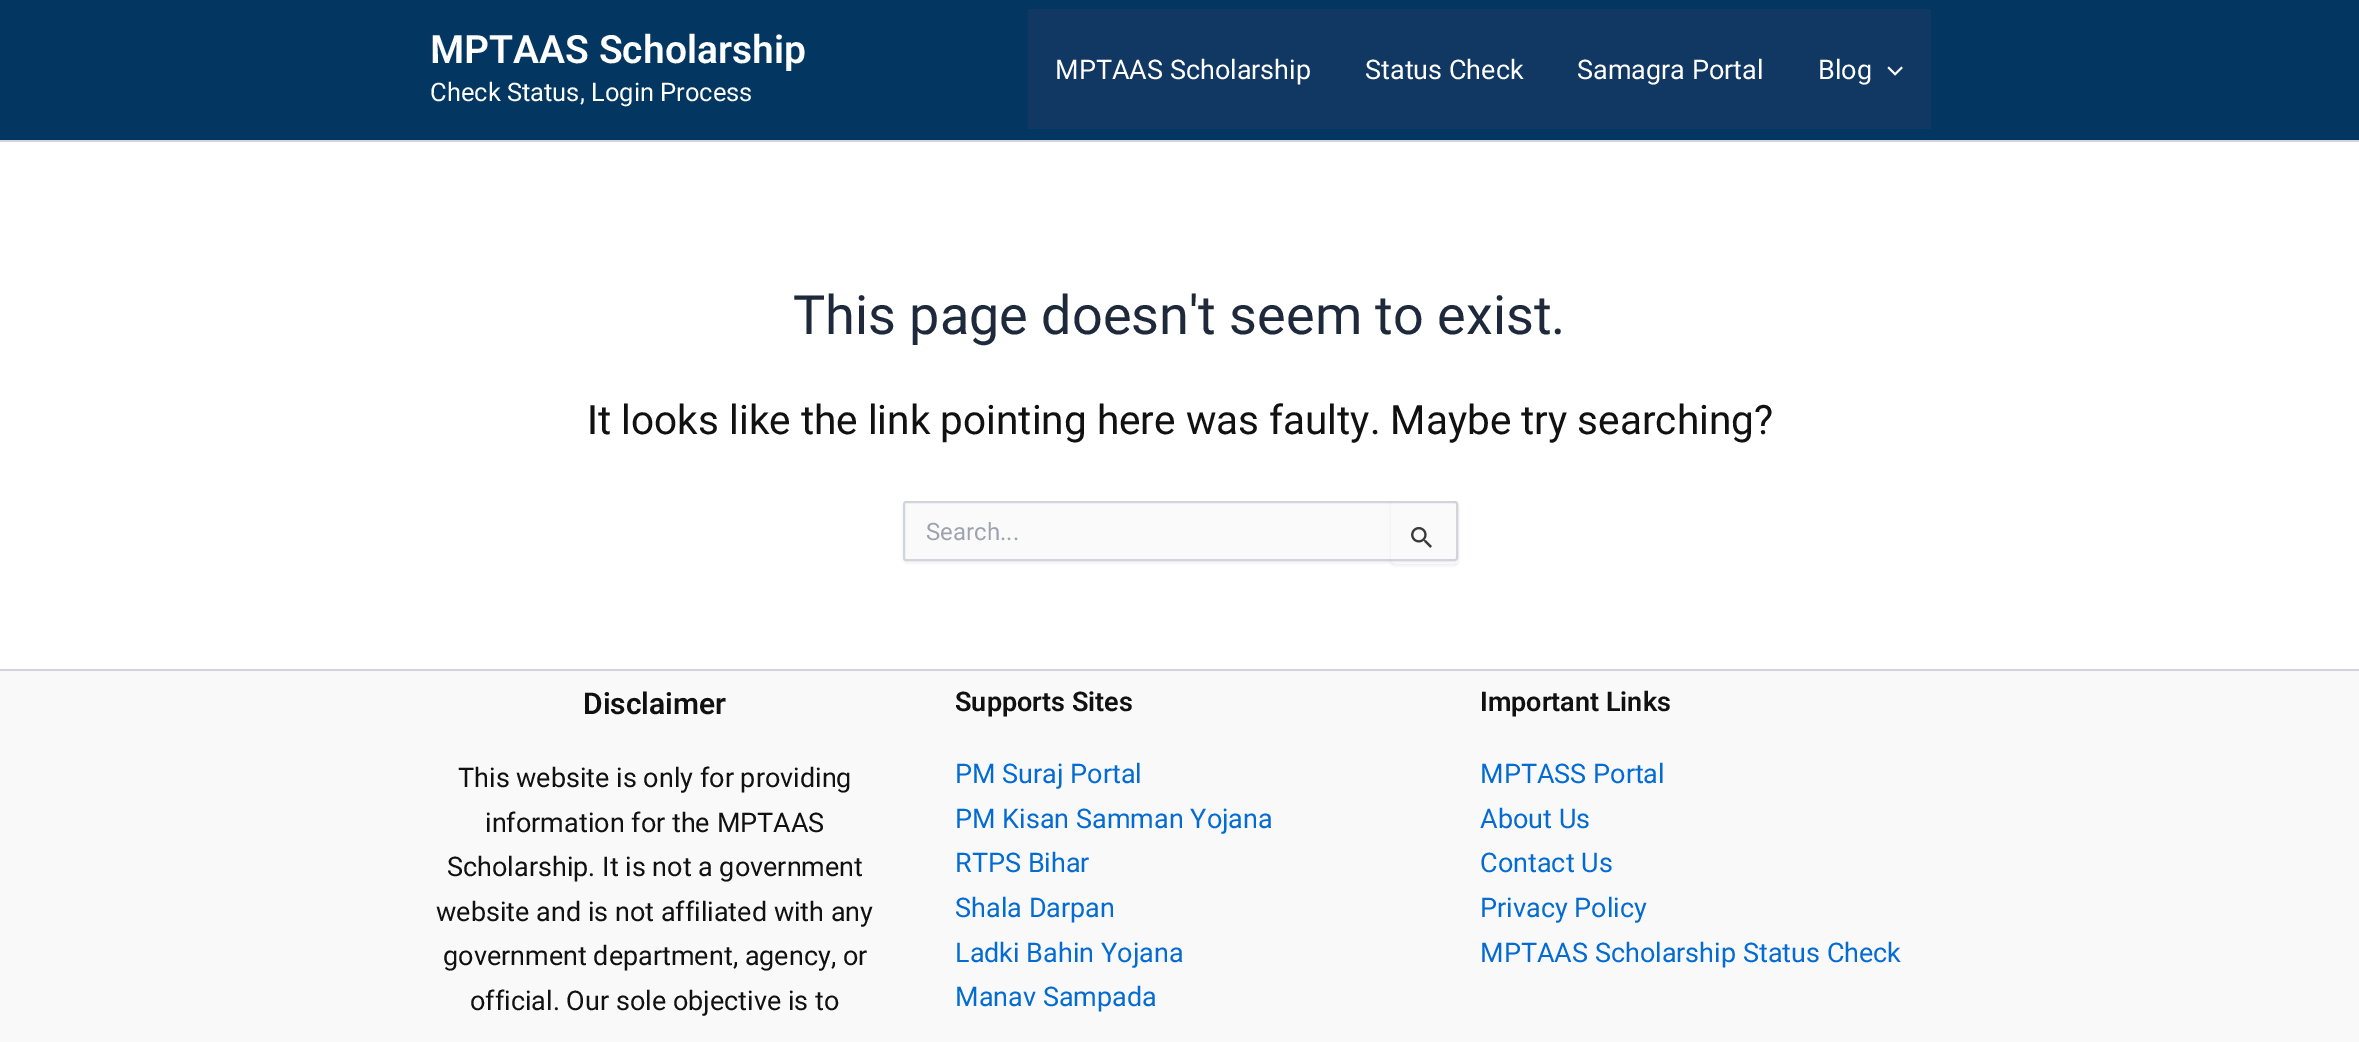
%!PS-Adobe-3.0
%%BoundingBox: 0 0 2359 1042
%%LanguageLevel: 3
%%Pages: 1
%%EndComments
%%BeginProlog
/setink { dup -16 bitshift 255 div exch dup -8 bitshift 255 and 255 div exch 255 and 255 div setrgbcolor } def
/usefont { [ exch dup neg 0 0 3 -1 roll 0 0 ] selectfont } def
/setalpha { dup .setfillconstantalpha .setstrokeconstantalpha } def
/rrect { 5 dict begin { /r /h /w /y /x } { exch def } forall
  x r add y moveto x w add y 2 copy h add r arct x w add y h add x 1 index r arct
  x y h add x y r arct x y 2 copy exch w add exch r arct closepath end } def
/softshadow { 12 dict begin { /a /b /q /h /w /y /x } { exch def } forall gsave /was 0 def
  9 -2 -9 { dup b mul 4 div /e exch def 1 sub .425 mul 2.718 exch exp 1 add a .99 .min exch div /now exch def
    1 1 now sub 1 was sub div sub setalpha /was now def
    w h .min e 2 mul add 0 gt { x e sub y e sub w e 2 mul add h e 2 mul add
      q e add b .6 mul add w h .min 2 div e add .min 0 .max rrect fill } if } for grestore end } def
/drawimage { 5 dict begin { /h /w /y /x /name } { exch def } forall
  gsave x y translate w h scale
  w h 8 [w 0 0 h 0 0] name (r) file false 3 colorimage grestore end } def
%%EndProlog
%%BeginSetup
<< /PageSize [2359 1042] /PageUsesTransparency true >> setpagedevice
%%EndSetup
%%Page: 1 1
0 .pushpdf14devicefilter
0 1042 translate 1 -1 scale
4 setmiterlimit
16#FFFFFF setink
0 0 2359 1042 rectfill
16#033762 setink
0 0 2359 140 rectfill
16#D1D5DB setink
0 140 2359 2 rectfill
/Roboto-SemiBold 39 usefont
16#FFFFFF setink
430 63 moveto (MPTAAS Scholarship) show
/Roboto-Regular 25.5 usefont
430 101 moveto (Check Status, Login Process) show
16#113763 setink
1028 9 903 120 rectfill
/Roboto-Regular 27 usefont
16#FFFFFF setink
[
    [(MPTAAS Scholarship) 1055 79]
    [(Status Check) 1365 79]
    [(Samagra Portal) 1577 79]
    [(Blog) 1818 79]
] { aload pop moveto show } forall
(img1.raw) 1887 66 16 10 drawimage
/Roboto-Regular 54 usefont
16#1E293B setink
793 334 moveto (This page doesn't seem to exist.) show
/Roboto-Regular 40.5 usefont
16#111111 setink
587 434 moveto (It looks like the link pointing here was faulty. Maybe try searching?) show
16#000000 setink
903 503 555 60 3 1.5 0.05 softshadow
16#FAFAFA setink
904 502 553 58 2 rrect gsave fill grestore
16#D1D5DB setink
2 setlinewidth
stroke
/Roboto-Regular 24 usefont
16#9CA3AF setink
926 540 moveto (Search...) show
(img2.raw) 1411 527 21 21 drawimage
gsave
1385 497 moveto 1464 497 lineto 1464 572 lineto 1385 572 lineto closepath 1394 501 moveto 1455 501 lineto 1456.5 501 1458 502.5 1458 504 curveto 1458 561 lineto 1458 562.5 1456.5 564 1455 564 curveto 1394 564 lineto 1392.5 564 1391 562.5 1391 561 curveto 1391 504 lineto 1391 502.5 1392.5 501 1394 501 curveto closepath eoclip newpath
16#000000 setink
1391 503 67 63 3 1.5 0.05 softshadow
grestore
16#F9F9F9 setink
0 671 2359 371 rectfill
16#D1D5DB setink
0 669 2359 2 rectfill
/Roboto-SemiBold 30 usefont
16#111111 setink
583 714 moveto (Disclaimer) show
/Roboto-Regular 27 usefont
[
    [(This website is only for providing) 458 787]
    [(information for the MPTAAS) 485 832]
    [(Scholarship. It is not a government) 447 876]
    [(website and is not affiliated with any) 436 921]
    [(government department, agency, or) 443 965]
    [(official. Our sole objective is to) 470 1010]
] { aload pop moveto show } forall
/Roboto-SemiBold 27 usefont
955 711 moveto (Supports Sites) show
/Roboto-Regular 27 usefont
16#046BD2 setink
[
    [(PM Suraj Portal) 955 783]
    [(PM Kisan Samman Yojana) 955 828]
    [(RTPS Bihar) 955 872]
    [(Shala Darpan) 955 917]
    [(Ladki Bahin Yojana) 955 962]
    [(Manav Sampada) 955 1006]
] { aload pop moveto show } forall
/Roboto-SemiBold 27 usefont
16#111111 setink
1480 711 moveto (Important Links) show
/Roboto-Regular 27 usefont
16#046BD2 setink
[
    [(MPTASS Portal) 1480 783]
    [(About Us) 1480 828]
    [(Contact Us) 1480 872]
    [(Privacy Policy) 1480 917]
    [(MPTAAS Scholarship Status Check) 1480 962]
] { aload pop moveto show } forall
.poppdf14devicefilter showpage
%%EOF
